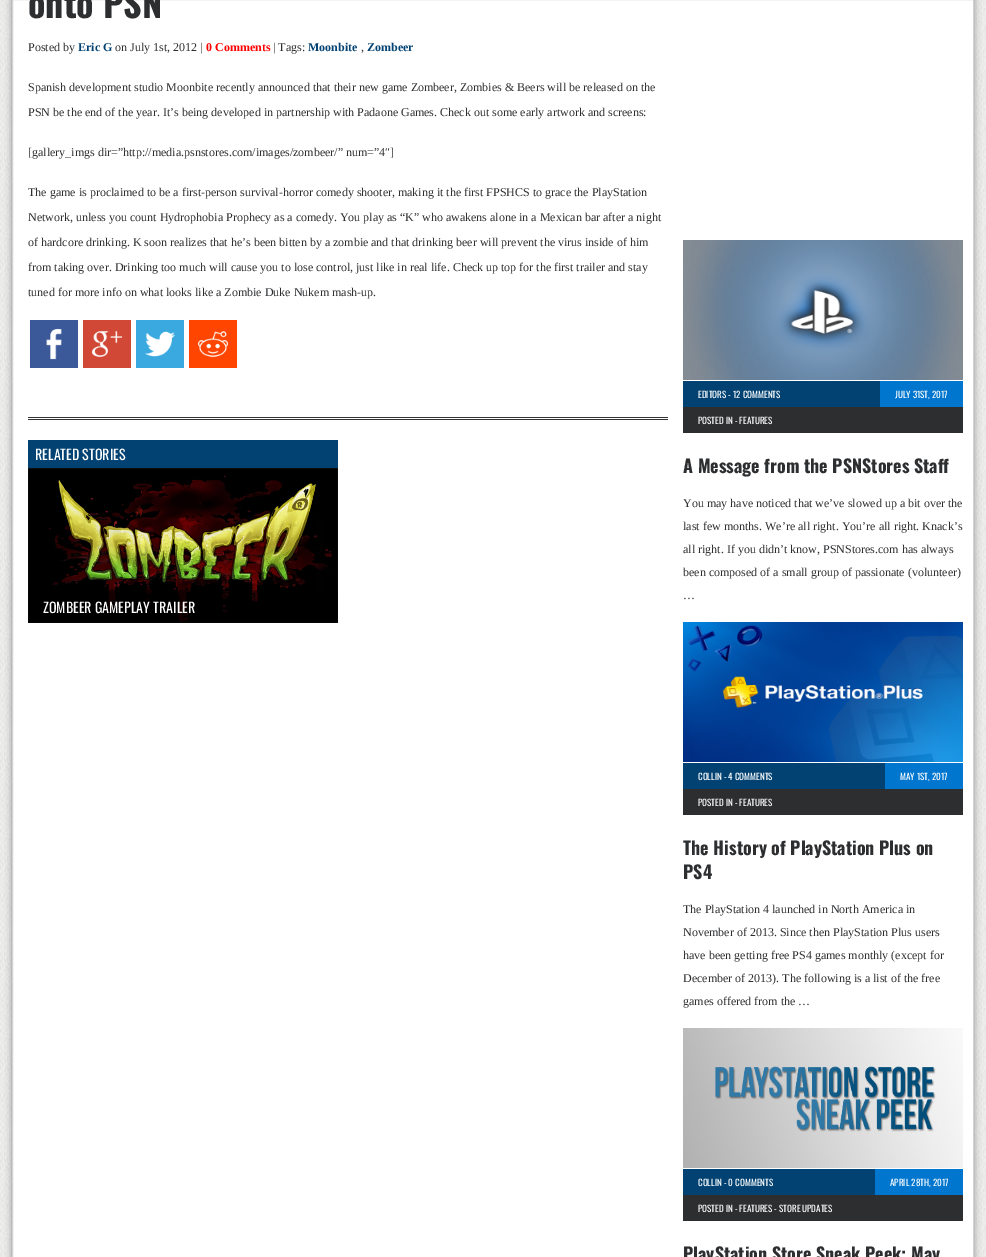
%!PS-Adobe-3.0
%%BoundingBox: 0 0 986 1257
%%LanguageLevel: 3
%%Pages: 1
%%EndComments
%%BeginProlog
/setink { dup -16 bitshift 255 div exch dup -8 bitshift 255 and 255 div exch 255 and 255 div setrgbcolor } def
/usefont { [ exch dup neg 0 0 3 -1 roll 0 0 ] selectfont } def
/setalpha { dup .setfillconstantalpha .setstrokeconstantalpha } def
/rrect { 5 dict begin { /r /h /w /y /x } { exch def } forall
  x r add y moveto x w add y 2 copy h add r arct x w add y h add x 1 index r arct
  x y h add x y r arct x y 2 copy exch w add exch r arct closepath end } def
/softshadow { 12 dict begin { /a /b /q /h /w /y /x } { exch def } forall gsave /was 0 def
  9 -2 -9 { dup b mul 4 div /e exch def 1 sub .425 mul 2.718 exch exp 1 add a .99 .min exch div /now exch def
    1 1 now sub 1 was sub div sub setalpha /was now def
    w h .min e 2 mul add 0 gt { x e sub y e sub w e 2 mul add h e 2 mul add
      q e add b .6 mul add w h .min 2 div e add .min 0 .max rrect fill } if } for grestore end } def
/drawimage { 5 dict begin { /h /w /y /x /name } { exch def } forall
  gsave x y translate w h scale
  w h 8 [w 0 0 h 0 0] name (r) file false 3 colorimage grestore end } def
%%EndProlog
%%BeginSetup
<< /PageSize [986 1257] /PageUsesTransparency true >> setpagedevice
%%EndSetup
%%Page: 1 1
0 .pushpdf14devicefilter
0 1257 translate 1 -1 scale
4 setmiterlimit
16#FFFFFF setink
0 0 986 1257 rectfill
(img1.raw) 0 0 986 1257 drawimage
16#888888 setink
12 -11 962 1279 0 3.5 1 softshadow
16#FFFFFF setink
12.5 -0.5 moveto 973.5 -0.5 lineto 973.5 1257.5 lineto 12.5 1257.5 lineto closepath gsave fill grestore
16#D2D2D2 setink
stroke
/Oswald-Bold 36 usefont
16#2C2E30 setink
28 18 moveto (onto PSN) show
/LiberationSerif-Regular 12 usefont
28 51 moveto (Posted by) show
/LiberationSerif-Bold 12 usefont
16#024272 setink
78 51 moveto (Eric G) show
/LiberationSerif-Regular 12 usefont
16#2C2E30 setink
115 51 moveto (on July 1st, 2012 |) show
/LiberationSerif-Bold 12 usefont
16#FF0000 setink
206 51 moveto (0 Comments) show
/LiberationSerif-Regular 12 usefont
16#2C2E30 setink
273 51 moveto (| Tags:) show
/LiberationSerif-Bold 12 usefont
16#024272 setink
308 51 moveto (Moonbite) show
/LiberationSerif-Regular 12 usefont
16#2C2E30 setink
361 51 moveto (,) show
/LiberationSerif-Bold 12 usefont
16#024272 setink
367 51 moveto (Zombeer) show
/LiberationSerif-Regular 12 usefont
16#2C2E30 setink
[
    [(Spanish development studio Moonbite recently announced that their new game Zombeer, Zombies & Beers will be released on the) 28 91]
    [(PSN be the end of the year. It’s being developed in partnership with Padaone Games. Check out some early artwork and screens:) 28 116]
    [([gallery_imgs dir=”http://media.psnstores.com/images/zombeer/” num=”4″]) 28 156]
    [(The game is proclaimed to be a first-person survival-horror comedy shooter, making it the first FPSHCS to grace the PlayStation) 28 196]
    [(Network, unless you count Hydrophobia Prophecy as a comedy. You play as “K” who awakens alone in a Mexican bar after a night) 28 221]
    [(of hardcore drinking. K soon realizes that he’s been bitten by a zombie and that drinking beer will prevent the virus inside of him) 28 246]
    [(from taking over. Drinking too much will cause you to lose control, just like in real life. Check up top for the first trailer and stay) 28 271]
    [(tuned for more info on what looks like a Zombie Duke Nukem mash-up.) 28 296]
] { aload pop moveto show } forall
(img2.raw) 30 320 48 48 drawimage
(img3.raw) 83 320 48 48 drawimage
(img4.raw) 136 320 48 48 drawimage
(img5.raw) 189 320 48 48 drawimage
[
    [28 417 640 1 16#333333]
    [28 419 640 1 16#333333]
    [28 440 310 28 16#024272]
] { aload pop setink rectfill } forall
/Oswald-Regular 14 usefont
16#FFFFFF setink
35 460 moveto (RELATED STORIES) show
(img6.raw) 28 468 310 155 drawimage
0.5 setalpha
16#000000 setink
28 590 310 33 rectfill
1 setalpha
16#FFFFFF setink
43 613 moveto (ZOMBEER GAMEPLAY TRAILER) show
(img7.raw) 683 240 280 140 drawimage
16#024272 setink
683 381 197 26 rectfill
/Oswald-Regular 9 usefont
16#FFFFFF setink
698 398 moveto (EDITORS - 12 COMMENTS) show
16#0076CF setink
880 381 83 26 rectfill
16#FFFFFF setink
895 398 moveto (JULY 31ST, 2017) show
16#2C2E30 setink
683 407 280 26 rectfill
16#FFFFFF setink
698 424 moveto (POSTED IN - FEATURES) show
/Oswald-Bold 18 usefont
16#2C2E30 setink
683 473 moveto (A Message from the PSNStores Staff) show
/LiberationSerif-Regular 12 usefont
[
    [(You may have noticed that we’ve slowed up a bit over the) 683 507]
    [(last few months. We’re all right. You’re all right. Knack’s) 683 530]
    [(all right. If you didn’t know, PSNStores.com has always) 683 553]
    [(been composed of a small group of passionate \(volunteer\)) 683 576]
    [(…) 683 599]
] { aload pop moveto show } forall
(img8.raw) 683 622 280 140 drawimage
16#024272 setink
683 763 202 26 rectfill
/Oswald-Regular 9 usefont
16#FFFFFF setink
698 780 moveto (COLLIN - 4 COMMENTS) show
16#0076CF setink
885 763 78 26 rectfill
16#FFFFFF setink
900 780 moveto (MAY 1ST, 2017) show
16#2C2E30 setink
683 789 280 26 rectfill
16#FFFFFF setink
698 806 moveto (POSTED IN - FEATURES) show
/Oswald-Bold 18 usefont
16#2C2E30 setink
683 855 moveto (The History of PlayStation Plus on) show
683 879 moveto (PS4) show
/LiberationSerif-Regular 12 usefont
[
    [(The PlayStation 4 launched in North America in) 683 913]
    [(November of 2013. Since then PlayStation Plus users) 683 936]
    [(have been getting free PS4 games monthly \(except for) 683 959]
    [(December of 2013\). The following is a list of the free) 683 982]
    [(games offered from the …) 683 1005]
] { aload pop moveto show } forall
(img9.raw) 683 1028 280 140 drawimage
16#024272 setink
683 1169 192 26 rectfill
/Oswald-Regular 9 usefont
16#FFFFFF setink
698 1186 moveto (COLLIN - 0 COMMENTS) show
16#0076CF setink
875 1169 88 26 rectfill
16#FFFFFF setink
890 1186 moveto (APRIL 28TH, 2017) show
16#2C2E30 setink
683 1195 280 26 rectfill
16#FFFFFF setink
698 1212 moveto (POSTED IN - FEATURES - STORE UPDATES) show
/Oswald-Bold 18 usefont
16#2C2E30 setink
683 1261 moveto (PlayStation Store Sneak Peek: May) show
.poppdf14devicefilter showpage
%%EOF
